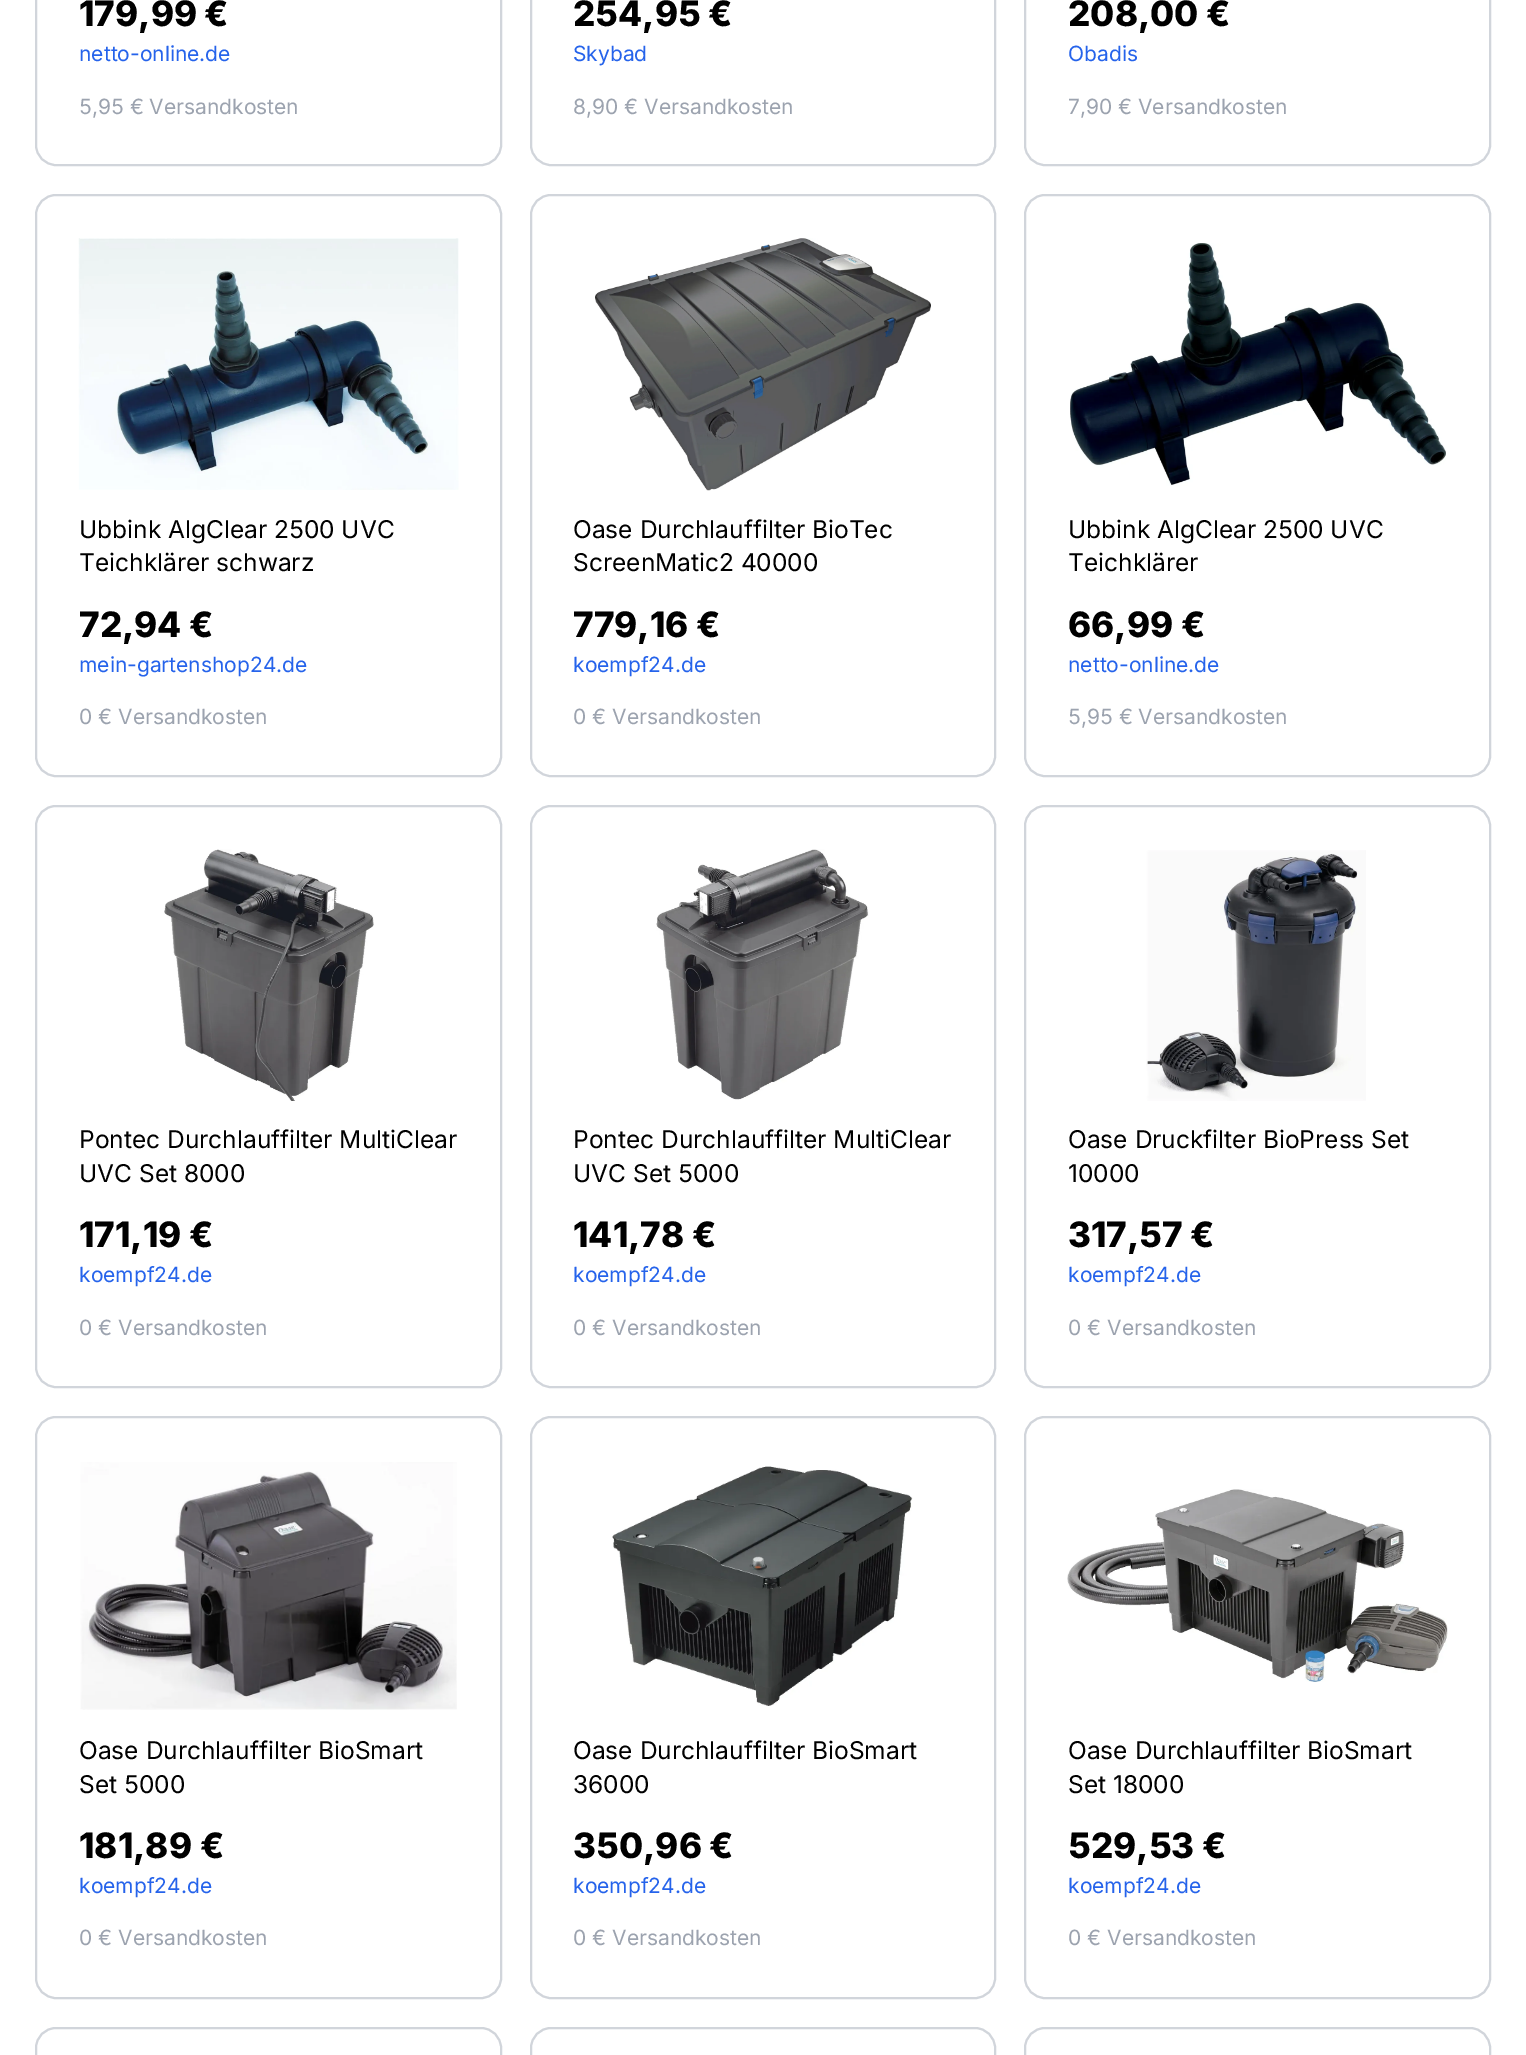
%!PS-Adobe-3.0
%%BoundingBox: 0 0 1526 2055
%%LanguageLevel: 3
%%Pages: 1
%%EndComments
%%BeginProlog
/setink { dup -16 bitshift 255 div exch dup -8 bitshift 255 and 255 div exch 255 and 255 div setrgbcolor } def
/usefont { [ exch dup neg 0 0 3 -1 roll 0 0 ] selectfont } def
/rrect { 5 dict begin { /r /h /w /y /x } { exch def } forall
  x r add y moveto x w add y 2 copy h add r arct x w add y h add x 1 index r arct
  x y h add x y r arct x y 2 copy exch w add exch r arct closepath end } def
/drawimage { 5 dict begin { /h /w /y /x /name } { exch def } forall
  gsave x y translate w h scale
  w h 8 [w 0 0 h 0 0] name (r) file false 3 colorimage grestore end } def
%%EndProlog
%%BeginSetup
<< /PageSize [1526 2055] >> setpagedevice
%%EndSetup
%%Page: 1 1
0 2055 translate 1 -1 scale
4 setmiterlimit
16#FFFFFF setink
0 0 1526 2055 rectfill
16#D1D5DB setink
2 setlinewidth
36 -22 465 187 20 rrect stroke
/Inter-ExtraBold 35 usefont
16#000000 setink
79 26 moveto (179,99 €) show
/Inter-Regular 21 usefont
16#2563EB setink
79 61 moveto (netto-online.de) show
16#9CA3AF setink
79 114 moveto (5,95 € Versandkosten) show
16#D1D5DB setink
531 -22 464 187 20 rrect stroke
/Inter-ExtraBold 35 usefont
16#000000 setink
573 26 moveto (254,95 €) show
/Inter-Regular 21 usefont
16#2563EB setink
573 61 moveto (Skybad) show
16#9CA3AF setink
573 114 moveto (8,90 € Versandkosten) show
16#D1D5DB setink
1025 -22 465 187 20 rrect stroke
/Inter-ExtraBold 35 usefont
16#000000 setink
1068 26 moveto (208,00 €) show
/Inter-Regular 21 usefont
16#2563EB setink
1068 61 moveto (Obadis) show
16#9CA3AF setink
1068 114 moveto (7,90 € Versandkosten) show
16#D1D5DB setink
36 195 465 581 20 rrect stroke
(img1.raw) 78 238 381 252 drawimage
/Inter-Regular 24.5 usefont
16#000000 setink
79 538 moveto (Ubbink AlgClear 2500 UVC) show
79 571 moveto (Teichklärer schwarz) show
/Inter-ExtraBold 35 usefont
79 637 moveto (72,94 €) show
/Inter-Regular 21 usefont
16#2563EB setink
79 672 moveto (mein-gartenshop24.de) show
16#9CA3AF setink
79 724 moveto (0 € Versandkosten) show
16#D1D5DB setink
531 195 464 581 20 rrect stroke
(img2.raw) 595 238 336 253 drawimage
/Inter-Regular 24.5 usefont
16#000000 setink
573 538 moveto (Oase Durchlauffilter BioTec) show
573 571 moveto (ScreenMatic2 40000) show
/Inter-ExtraBold 35 usefont
573 637 moveto (779,16 €) show
/Inter-Regular 21 usefont
16#2563EB setink
573 672 moveto (koempf24.de) show
16#9CA3AF setink
573 724 moveto (0 € Versandkosten) show
16#D1D5DB setink
1025 195 465 581 20 rrect stroke
(img3.raw) 1070 243 376 243 drawimage
/Inter-Regular 24.5 usefont
16#000000 setink
1068 538 moveto (Ubbink AlgClear 2500 UVC) show
1068 571 moveto (Teichklärer) show
/Inter-ExtraBold 35 usefont
1068 637 moveto (66,99 €) show
/Inter-Regular 21 usefont
16#2563EB setink
1068 672 moveto (netto-online.de) show
16#9CA3AF setink
1068 724 moveto (5,95 € Versandkosten) show
16#D1D5DB setink
36 806 465 581 20 rrect stroke
(img4.raw) 164 849 210 252 drawimage
/Inter-Regular 24.5 usefont
16#000000 setink
79 1148 moveto (Pontec Durchlauffilter MultiClear) show
79 1182 moveto (UVC Set 8000) show
/Inter-ExtraBold 35 usefont
79 1247 moveto (171,19 €) show
/Inter-Regular 21 usefont
16#2563EB setink
79 1282 moveto (koempf24.de) show
16#9CA3AF setink
79 1335 moveto (0 € Versandkosten) show
16#D1D5DB setink
531 806 464 581 20 rrect stroke
(img5.raw) 656 849 213 251 drawimage
/Inter-Regular 24.5 usefont
16#000000 setink
573 1148 moveto (Pontec Durchlauffilter MultiClear) show
573 1182 moveto (UVC Set 5000) show
/Inter-ExtraBold 35 usefont
573 1247 moveto (141,78 €) show
/Inter-Regular 21 usefont
16#2563EB setink
573 1282 moveto (koempf24.de) show
16#9CA3AF setink
573 1335 moveto (0 € Versandkosten) show
16#D1D5DB setink
1025 806 465 581 20 rrect stroke
(img6.raw) 1146 850 220 251 drawimage
/Inter-Regular 24.5 usefont
16#000000 setink
1068 1148 moveto (Oase Druckfilter BioPress Set) show
1068 1182 moveto (10000) show
/Inter-ExtraBold 35 usefont
1068 1247 moveto (317,57 €) show
/Inter-Regular 21 usefont
16#2563EB setink
1068 1282 moveto (koempf24.de) show
16#9CA3AF setink
1068 1335 moveto (0 € Versandkosten) show
16#D1D5DB setink
36 1417 465 581 20 rrect stroke
(img7.raw) 80 1462 377 248 drawimage
/Inter-Regular 24.5 usefont
16#000000 setink
79 1759 moveto (Oase Durchlauffilter BioSmart) show
79 1793 moveto (Set 5000) show
/Inter-ExtraBold 35 usefont
79 1858 moveto (181,89 €) show
/Inter-Regular 21 usefont
16#2563EB setink
79 1893 moveto (koempf24.de) show
16#9CA3AF setink
79 1945 moveto (0 € Versandkosten) show
16#D1D5DB setink
531 1417 464 581 20 rrect stroke
(img8.raw) 612 1466 301 240 drawimage
/Inter-Regular 24.5 usefont
16#000000 setink
573 1759 moveto (Oase Durchlauffilter BioSmart) show
573 1793 moveto (36000) show
/Inter-ExtraBold 35 usefont
573 1858 moveto (350,96 €) show
/Inter-Regular 21 usefont
16#2563EB setink
573 1893 moveto (koempf24.de) show
16#9CA3AF setink
573 1945 moveto (0 € Versandkosten) show
16#D1D5DB setink
1025 1417 465 581 20 rrect stroke
(img9.raw) 1067 1489 381 193 drawimage
/Inter-Regular 24.5 usefont
16#000000 setink
1068 1759 moveto (Oase Durchlauffilter BioSmart) show
1068 1793 moveto (Set 18000) show
/Inter-ExtraBold 35 usefont
1068 1858 moveto (529,53 €) show
/Inter-Regular 21 usefont
16#2563EB setink
1068 1893 moveto (koempf24.de) show
16#9CA3AF setink
1068 1945 moveto (0 € Versandkosten) show
16#D1D5DB setink
36 2028 465 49 20 rrect stroke
531 2028 464 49 20 rrect stroke
1025 2028 465 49 20 rrect stroke
showpage
%%EOF
